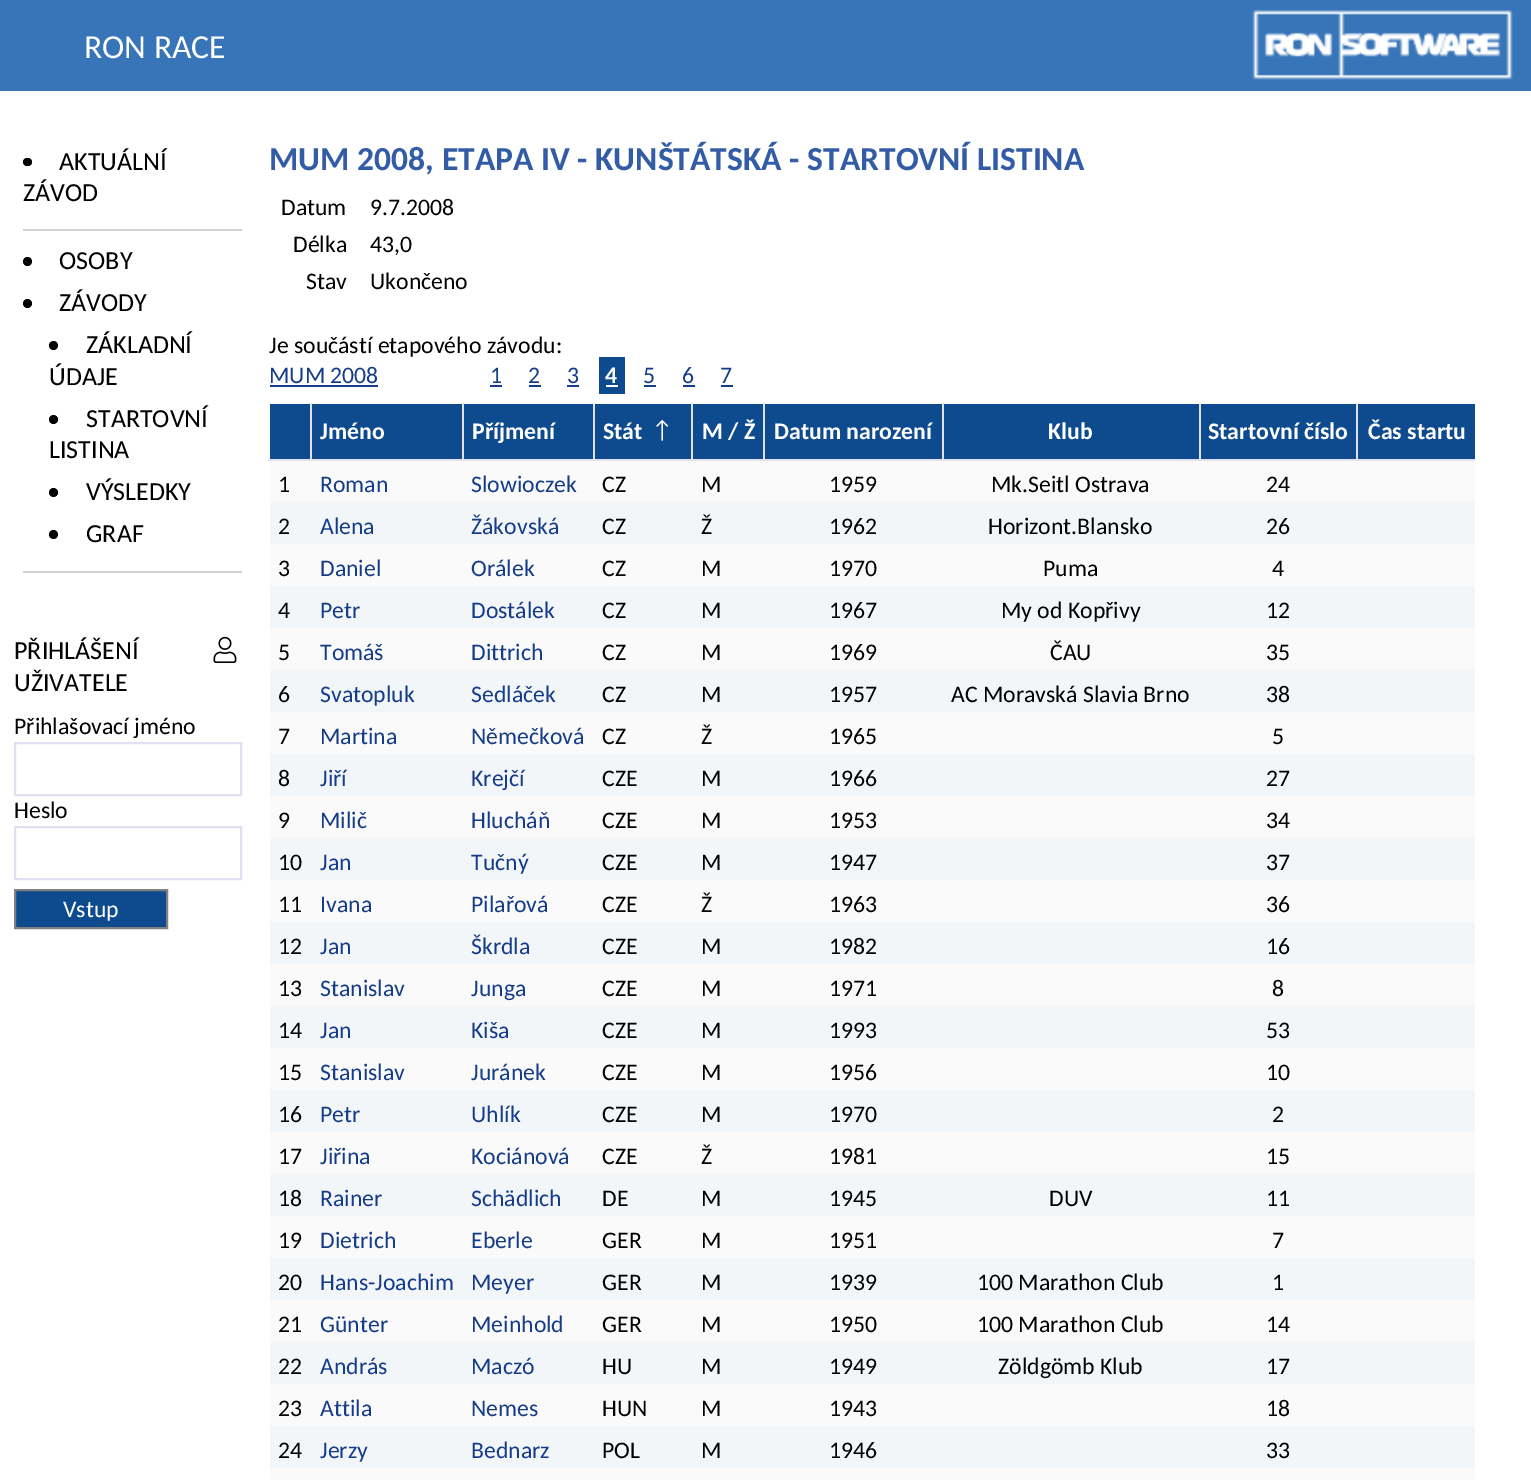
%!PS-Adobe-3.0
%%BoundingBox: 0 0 1531 1480
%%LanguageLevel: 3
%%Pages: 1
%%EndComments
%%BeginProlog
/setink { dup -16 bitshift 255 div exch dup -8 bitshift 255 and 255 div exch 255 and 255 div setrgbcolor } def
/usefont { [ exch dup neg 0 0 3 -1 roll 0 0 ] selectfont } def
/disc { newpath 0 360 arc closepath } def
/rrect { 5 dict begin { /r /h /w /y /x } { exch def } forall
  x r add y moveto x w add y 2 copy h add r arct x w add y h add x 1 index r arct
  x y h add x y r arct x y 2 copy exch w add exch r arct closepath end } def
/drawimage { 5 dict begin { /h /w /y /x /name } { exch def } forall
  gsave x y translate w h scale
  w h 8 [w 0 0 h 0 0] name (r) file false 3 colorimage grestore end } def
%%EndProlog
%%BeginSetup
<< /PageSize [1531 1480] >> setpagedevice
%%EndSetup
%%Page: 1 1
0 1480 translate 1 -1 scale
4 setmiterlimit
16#FFFFFF setink
0 0 1531 1480 rectfill
16#3774B8 setink
0 0 1531 91 rectfill
/Carlito-Regular 33.6 usefont
16#FFFFFF setink
84 58 moveto (RON RACE) show
(img1.raw) 1252 10 261 70 drawimage
16#000000 setink
23 158 9 8 4 rrect fill
/Carlito-Regular 26 usefont
59 170 moveto (AKTUÁLNÍ) show
23 201 moveto (ZÁVOD) show
16#D3D3D3 setink
23 229 219 2 rectfill
16#000000 setink
27.5 261.5 4.5 disc fill
59 269 moveto (OSOBY) show
27.5 303.5 4.5 disc fill
59 311 moveto (ZÁVODY) show
53.5 345.5 4.5 disc fill
86 353 moveto (ZÁKLADNÍ) show
49 385 moveto (ÚDAJE) show
53.5 419.5 4.5 disc fill
86 427 moveto (STARTOVNÍ) show
49 458 moveto (LISTINA) show
53.5 492.5 4.5 disc fill
86 500 moveto (VÝSLEDKY) show
53.5 534.5 4.5 disc fill
86 542 moveto (GRAF) show
16#D3D3D3 setink
23 571 219 2 rectfill
16#000000 setink
14 659 moveto (PŘIHLÁŠENÍ) show
(img2.raw) 213 636 24 27 drawimage
14 691 moveto (UŽIVATELE) show
/Carlito-Regular 23.75 usefont
14 734 moveto (Přihlašovací jméno) show
16#E0E0F0 setink
2 setlinewidth
15 743 226 52 rectstroke
16#000000 setink
14 818 moveto (Heslo) show
16#E0E0F0 setink
15 827 226 52 rectstroke
16#0D4A8E setink
15 890 moveto 167 890 lineto 167 928 lineto 15 928 lineto closepath gsave fill grestore
16#808080 setink
stroke
16#FFFFFF setink
63 917 moveto (Vstup) show
/Carlito-Bold 33.6 usefont
16#335CA6 setink
269 170 moveto (MUM 2008, ETAPA IV - KUNŠTÁTSKÁ - STARTOVNÍ LISTINA) show
/Carlito-Regular 23.75 usefont
16#000000 setink
[
    [(Datum) 281 215]
    [(9.7.2008) 370 215]
    [(Délka) 293 252]
    [(43,0) 370 252]
    [(Stav) 306 289]
    [(Ukončeno) 370 289]
    [(Je součástí etapového závodu:) 269 353]
] { aload pop moveto show } forall
16#153C88 setink
269 383 moveto (MUM 2008) show
270 385 108 2 rectfill
490 383 moveto (1) show
490 385 12 2 rectfill
528 383 moveto (2) show
529 385 12 2 rectfill
567 383 moveto (3) show
567 385 12 2 rectfill
16#0D4A8E setink
599 357 26 37 rectfill
/Carlito-Bold 23.75 usefont
16#FFFFFF setink
605 383 moveto (4) show
606 385 12 2 rectfill
/Carlito-Regular 23.75 usefont
16#153C88 setink
643 383 moveto (5) show
644 385 12 2 rectfill
682 383 moveto (6) show
683 385 12 2 rectfill
720 383 moveto (7) show
[
    [721 385 12 2 16#153C88]
    [270 461 1205 1019 16#FAFAFA]
    [270 404 40 55 16#0D4A8E]
    [1356 459 119 2 16#E0E0F0]
    [1356 403 2 57 16#E0E0F0]
    [1199 459 159 2 16#E0E0F0]
    [1199 403 2 57 16#E0E0F0]
    [942 459 259 2 16#E0E0F0]
    [942 403 2 57 16#E0E0F0]
    [763 459 180 2 16#E0E0F0]
    [763 403 2 57 16#E0E0F0]
    [691 459 74 2 16#E0E0F0]
    [691 403 2 57 16#E0E0F0]
    [593 459 100 2 16#E0E0F0]
    [593 403 2 57 16#E0E0F0]
    [462 459 133 2 16#E0E0F0]
    [462 403 2 57 16#E0E0F0]
    [310 459 154 2 16#E0E0F0]
    [310 403 2 57 16#E0E0F0]
    [268 459 44 2 16#E0E0F0]
    [312 404 150 55 16#0D4A8E]
] { aload pop setink rectfill } forall
/Carlito-Bold 23.75 usefont
16#FFFFFF setink
320 439 moveto (Jméno) show
16#0D4A8E setink
464 404 129 55 rectfill
16#FFFFFF setink
472 439 moveto (Příjmení) show
16#0D4A8E setink
595 404 96 55 rectfill
16#FFFFFF setink
603 439 moveto (Stát) show
(img3.raw) 656 420 13 21 drawimage
16#0D4A8E setink
693 404 70 55 rectfill
16#FFFFFF setink
702 439 moveto (M / Ž) show
16#0D4A8E setink
765 404 177 55 rectfill
16#FFFFFF setink
774 439 moveto (Datum narození) show
16#0D4A8E setink
944 404 255 55 rectfill
16#FFFFFF setink
1048 439 moveto (Klub) show
16#0D4A8E setink
1201 404 155 55 rectfill
16#FFFFFF setink
1208 439 moveto (Startovní číslo) show
16#0D4A8E setink
1358 404 117 55 rectfill
16#FFFFFF setink
1368 439 moveto (Čas startu) show
/Carlito-Regular 23.75 usefont
16#000000 setink
278 492 moveto (1) show
16#153C88 setink
320 492 moveto (Roman) show
471 492 moveto (Slowioczek) show
16#000000 setink
[
    [(CZ) 602 492]
    [(M) 701 492]
    [(1959) 829 492]
    [(Mk.Seitl Ostrava) 991 492]
    [(24) 1266 492]
] { aload pop moveto show } forall
16#F3F6F9 setink
270 502 1205 42 rectfill
16#000000 setink
278 534 moveto (2) show
16#153C88 setink
320 534 moveto (Alena) show
471 534 moveto (Žákovská) show
16#000000 setink
[
    [(CZ) 602 534]
    [(Ž) 701 534]
    [(1962) 829 534]
    [(Horizont.Blansko) 988 534]
    [(26) 1266 534]
    [(3) 278 576]
] { aload pop moveto show } forall
16#153C88 setink
320 576 moveto (Daniel) show
471 576 moveto (Orálek) show
16#000000 setink
[
    [(CZ) 602 576]
    [(M) 701 576]
    [(1970) 829 576]
    [(Puma) 1043 576]
    [(4) 1272 576]
] { aload pop moveto show } forall
16#F3F6F9 setink
270 586 1205 42 rectfill
16#000000 setink
278 618 moveto (4) show
16#153C88 setink
320 618 moveto (Petr) show
471 618 moveto (Dostálek) show
16#000000 setink
[
    [(CZ) 602 618]
    [(M) 701 618]
    [(1967) 829 618]
    [(My od Kopřivy) 1001 618]
    [(12) 1266 618]
    [(5) 278 660]
] { aload pop moveto show } forall
16#153C88 setink
320 660 moveto (Tomáš) show
471 660 moveto (Dittrich) show
16#000000 setink
[
    [(CZ) 602 660]
    [(M) 701 660]
    [(1969) 829 660]
    [(ČAU) 1050 660]
    [(35) 1266 660]
] { aload pop moveto show } forall
16#F3F6F9 setink
270 670 1205 42 rectfill
16#000000 setink
278 702 moveto (6) show
16#153C88 setink
320 702 moveto (Svatopluk) show
471 702 moveto (Sedláček) show
16#000000 setink
[
    [(CZ) 602 702]
    [(M) 701 702]
    [(1957) 829 702]
    [(AC Moravská Slavia Brno) 951 702]
    [(38) 1266 702]
    [(7) 278 744]
] { aload pop moveto show } forall
16#153C88 setink
320 744 moveto (Martina) show
471 744 moveto (Němečková) show
16#000000 setink
[
    [(CZ) 602 744]
    [(Ž) 701 744]
    [(1965) 829 744]
    [(5) 1272 744]
] { aload pop moveto show } forall
16#F3F6F9 setink
270 754 1205 42 rectfill
16#000000 setink
278 786 moveto (8) show
16#153C88 setink
320 786 moveto (Jiří) show
471 786 moveto (Krejčí) show
16#000000 setink
[
    [(CZE) 602 786]
    [(M) 701 786]
    [(1966) 829 786]
    [(27) 1266 786]
    [(9) 278 828]
] { aload pop moveto show } forall
16#153C88 setink
320 828 moveto (Milič) show
471 828 moveto (Hlucháň) show
16#000000 setink
[
    [(CZE) 602 828]
    [(M) 701 828]
    [(1953) 829 828]
    [(34) 1266 828]
] { aload pop moveto show } forall
16#F3F6F9 setink
270 838 1205 42 rectfill
16#000000 setink
278 870 moveto (10) show
16#153C88 setink
320 870 moveto (Jan) show
471 870 moveto (Tučný) show
16#000000 setink
[
    [(CZE) 602 870]
    [(M) 701 870]
    [(1947) 829 870]
    [(37) 1266 870]
    [(11) 278 912]
] { aload pop moveto show } forall
16#153C88 setink
320 912 moveto (Ivana) show
471 912 moveto (Pilařová) show
16#000000 setink
[
    [(CZE) 602 912]
    [(Ž) 701 912]
    [(1963) 829 912]
    [(36) 1266 912]
] { aload pop moveto show } forall
16#F3F6F9 setink
270 922 1205 42 rectfill
16#000000 setink
278 954 moveto (12) show
16#153C88 setink
320 954 moveto (Jan) show
471 954 moveto (Škrdla) show
16#000000 setink
[
    [(CZE) 602 954]
    [(M) 701 954]
    [(1982) 829 954]
    [(16) 1266 954]
    [(13) 278 996]
] { aload pop moveto show } forall
16#153C88 setink
320 996 moveto (Stanislav) show
471 996 moveto (Junga) show
16#000000 setink
[
    [(CZE) 602 996]
    [(M) 701 996]
    [(1971) 829 996]
    [(8) 1272 996]
] { aload pop moveto show } forall
16#F3F6F9 setink
270 1006 1205 42 rectfill
16#000000 setink
278 1038 moveto (14) show
16#153C88 setink
320 1038 moveto (Jan) show
471 1038 moveto (Kiša) show
16#000000 setink
[
    [(CZE) 602 1038]
    [(M) 701 1038]
    [(1993) 829 1038]
    [(53) 1266 1038]
    [(15) 278 1080]
] { aload pop moveto show } forall
16#153C88 setink
320 1080 moveto (Stanislav) show
471 1080 moveto (Juránek) show
16#000000 setink
[
    [(CZE) 602 1080]
    [(M) 701 1080]
    [(1956) 829 1080]
    [(10) 1266 1080]
] { aload pop moveto show } forall
16#F3F6F9 setink
270 1090 1205 42 rectfill
16#000000 setink
278 1122 moveto (16) show
16#153C88 setink
320 1122 moveto (Petr) show
471 1122 moveto (Uhlík) show
16#000000 setink
[
    [(CZE) 602 1122]
    [(M) 701 1122]
    [(1970) 829 1122]
    [(2) 1272 1122]
    [(17) 278 1164]
] { aload pop moveto show } forall
16#153C88 setink
320 1164 moveto (Jiřina) show
471 1164 moveto (Kociánová) show
16#000000 setink
[
    [(CZE) 602 1164]
    [(Ž) 701 1164]
    [(1981) 829 1164]
    [(15) 1266 1164]
] { aload pop moveto show } forall
16#F3F6F9 setink
270 1174 1205 42 rectfill
16#000000 setink
278 1206 moveto (18) show
16#153C88 setink
320 1206 moveto (Rainer) show
471 1206 moveto (Schädlich) show
16#000000 setink
[
    [(DE) 602 1206]
    [(M) 701 1206]
    [(1945) 829 1206]
    [(DUV) 1049 1206]
    [(11) 1266 1206]
    [(19) 278 1248]
] { aload pop moveto show } forall
16#153C88 setink
320 1248 moveto (Dietrich) show
471 1248 moveto (Eberle) show
16#000000 setink
[
    [(GER) 602 1248]
    [(M) 701 1248]
    [(1951) 829 1248]
    [(7) 1272 1248]
] { aload pop moveto show } forall
16#F3F6F9 setink
270 1258 1205 42 rectfill
16#000000 setink
278 1290 moveto (20) show
16#153C88 setink
320 1290 moveto (Hans-Joachim) show
471 1290 moveto (Meyer) show
16#000000 setink
[
    [(GER) 602 1290]
    [(M) 701 1290]
    [(1939) 829 1290]
    [(100 Marathon Club) 977 1290]
    [(1) 1272 1290]
    [(21) 278 1332]
] { aload pop moveto show } forall
16#153C88 setink
320 1332 moveto (Günter) show
471 1332 moveto (Meinhold) show
16#000000 setink
[
    [(GER) 602 1332]
    [(M) 701 1332]
    [(1950) 829 1332]
    [(100 Marathon Club) 977 1332]
    [(14) 1266 1332]
] { aload pop moveto show } forall
16#F3F6F9 setink
270 1342 1205 42 rectfill
16#000000 setink
278 1374 moveto (22) show
16#153C88 setink
320 1374 moveto (András) show
471 1374 moveto (Maczó) show
16#000000 setink
[
    [(HU) 602 1374]
    [(M) 701 1374]
    [(1949) 829 1374]
    [(Zöldgömb Klub) 998 1374]
    [(17) 1266 1374]
    [(23) 278 1416]
] { aload pop moveto show } forall
16#153C88 setink
320 1416 moveto (Attila) show
471 1416 moveto (Nemes) show
16#000000 setink
[
    [(HUN) 602 1416]
    [(M) 701 1416]
    [(1943) 829 1416]
    [(18) 1266 1416]
] { aload pop moveto show } forall
16#F3F6F9 setink
270 1426 1205 42 rectfill
16#000000 setink
278 1458 moveto (24) show
16#153C88 setink
320 1458 moveto (Jerzy) show
471 1458 moveto (Bednarz) show
16#000000 setink
[
    [(POL) 602 1458]
    [(M) 701 1458]
    [(1946) 829 1458]
    [(33) 1266 1458]
] { aload pop moveto show } forall
showpage
%%EOF
